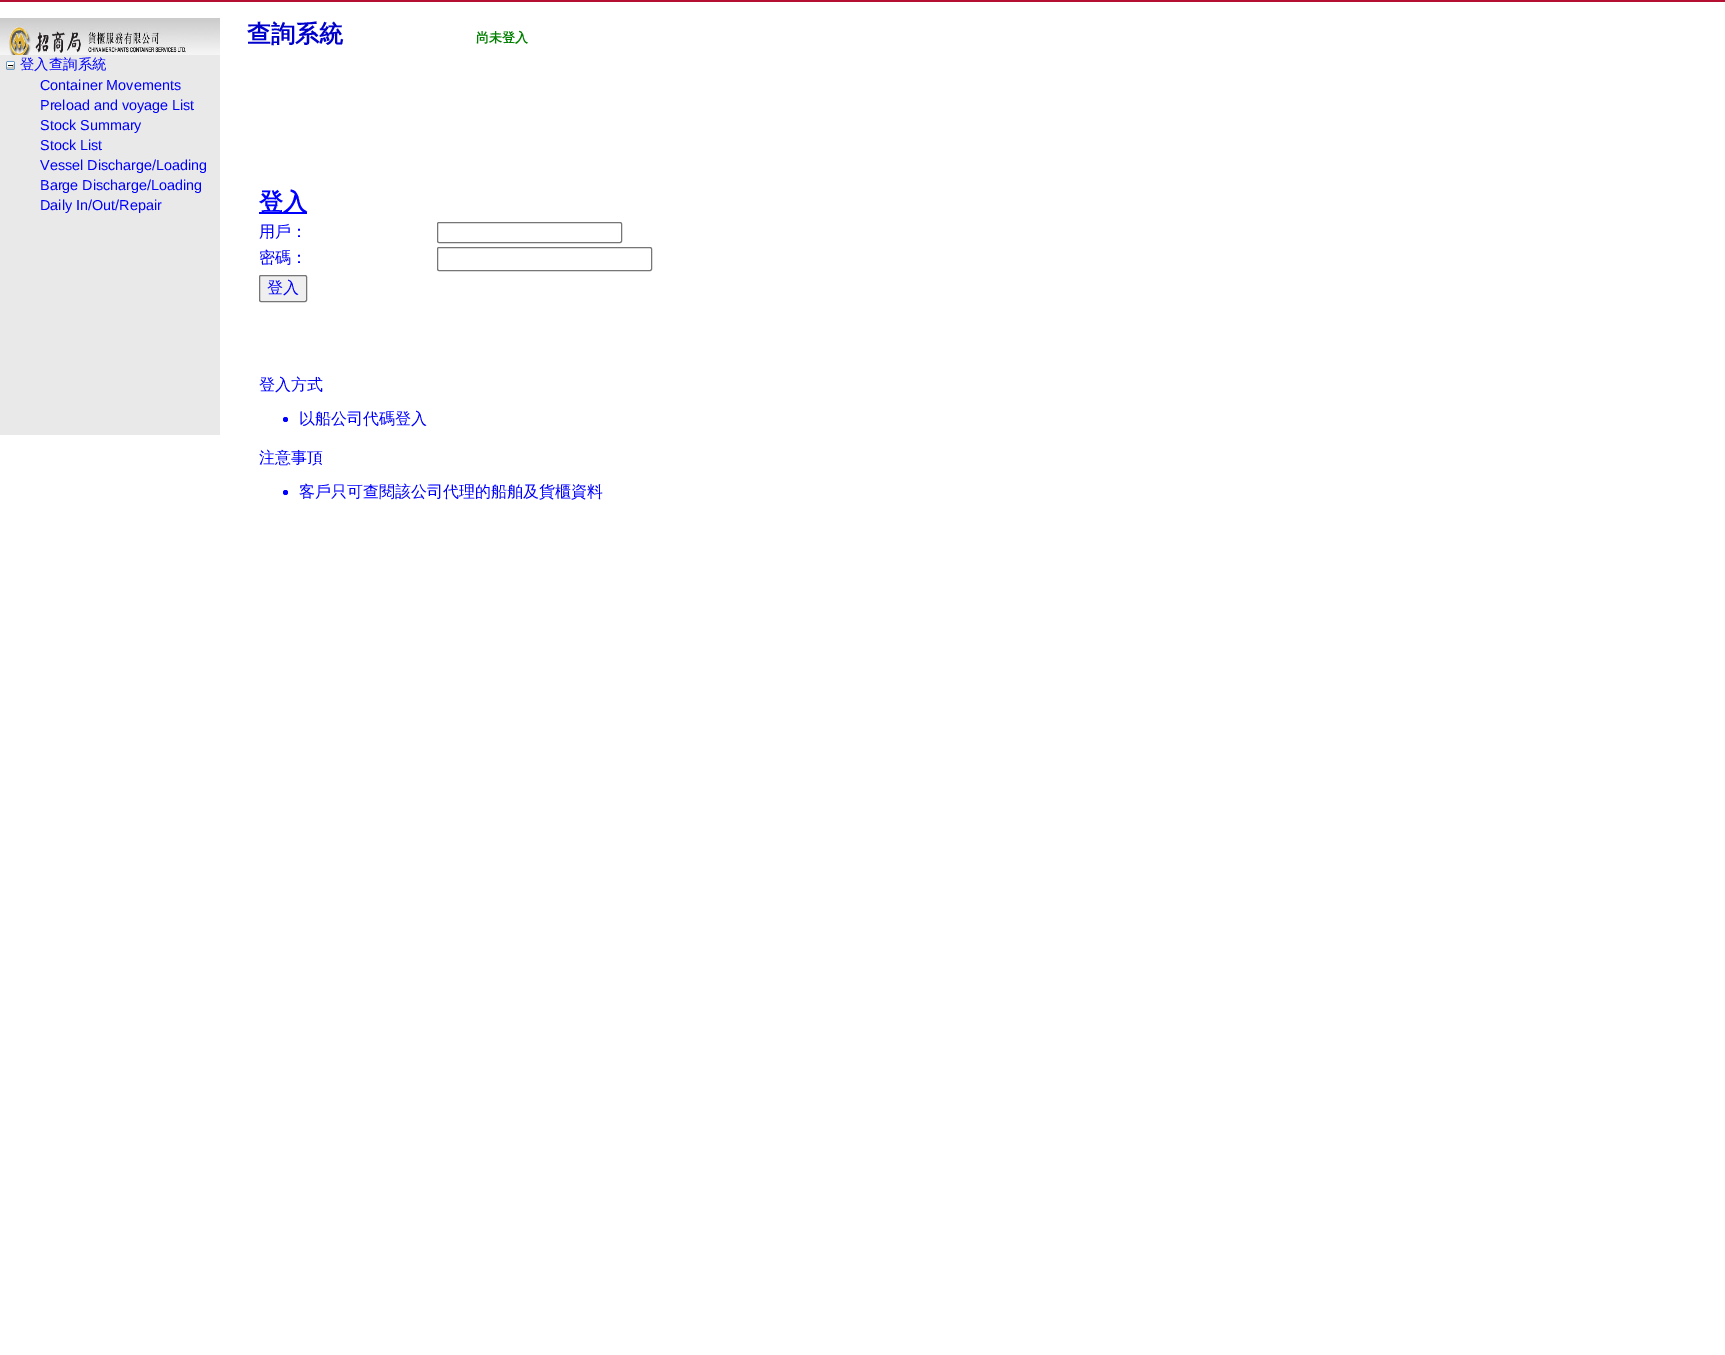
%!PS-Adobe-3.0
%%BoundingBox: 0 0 1725 1355
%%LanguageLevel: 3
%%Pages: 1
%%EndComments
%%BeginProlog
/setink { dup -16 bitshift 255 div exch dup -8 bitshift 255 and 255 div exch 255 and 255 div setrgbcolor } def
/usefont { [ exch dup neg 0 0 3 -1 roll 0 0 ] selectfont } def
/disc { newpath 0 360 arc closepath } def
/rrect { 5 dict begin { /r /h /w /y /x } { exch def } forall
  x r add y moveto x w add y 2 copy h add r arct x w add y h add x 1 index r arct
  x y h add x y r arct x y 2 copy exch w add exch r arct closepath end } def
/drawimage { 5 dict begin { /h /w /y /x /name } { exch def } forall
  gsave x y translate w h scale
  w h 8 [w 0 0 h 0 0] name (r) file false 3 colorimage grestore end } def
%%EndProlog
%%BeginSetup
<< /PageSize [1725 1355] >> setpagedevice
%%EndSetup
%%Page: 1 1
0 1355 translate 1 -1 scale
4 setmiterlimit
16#FFFFFF setink
0 0 1725 1355 rectfill
16#B51032 setink
0 0 1725 2 rectfill
(img1.raw) 0 18 220 37 drawimage
/WenQuanYiZenHei-Bold 24 usefont
16#0000CC setink
247 42 moveto (查詢系統) show
/WenQuanYiZenHei-Bold 13 usefont
16#008000 setink
476 42 moveto (尚未登入) show
16#E9E9E9 setink
0 55 220 380 rectfill
(img2.raw) 6 61 9 9 drawimage
/WenQuanYiZenHei-Medium 14.4 usefont
16#0000FF setink
20 69 moveto (登入查詢系統) show
/LiberationSans-Regular 14.4 usefont
[
    [(Container Movements) 40 90]
    [(Preload and voyage List) 40 110]
    [(Stock Summary) 40 130]
    [(Stock List) 40 150]
    [(Vessel Discharge/Loading) 40 170]
    [(Barge Discharge/Loading) 40 190]
    [(Daily In/Out/Repair) 40 210]
] { aload pop moveto show } forall
259 212 48 2 rectfill
/WenQuanYiZenHei-Bold 24 usefont
259 210 moveto (登入) show
/WenQuanYiZenHei-Medium 16 usefont
259 237 moveto (用戶：) show
16#767676 setink
437.5 222.5 184 20 1.5 rrect stroke
16#0000FF setink
259 263 moveto (密碼：) show
16#767676 setink
437.5 247.5 214 23 1.5 rrect stroke
16#EFEFEF setink
259.5 275.5 47 26 1.5 rrect gsave fill grestore
16#767676 setink
stroke
16#0000FF setink
267 293 moveto (登入) show
259 390 moveto (登入方式) show
285.5 419.5 2.5 disc fill
299 424 moveto (以船公司代碼登入) show
259 463 moveto (注意事頂) show
285.5 492.5 2.5 disc fill
299 497 moveto (客戶只可查閱該公司代理的船舶及貨櫃資料) show
showpage
%%EOF
